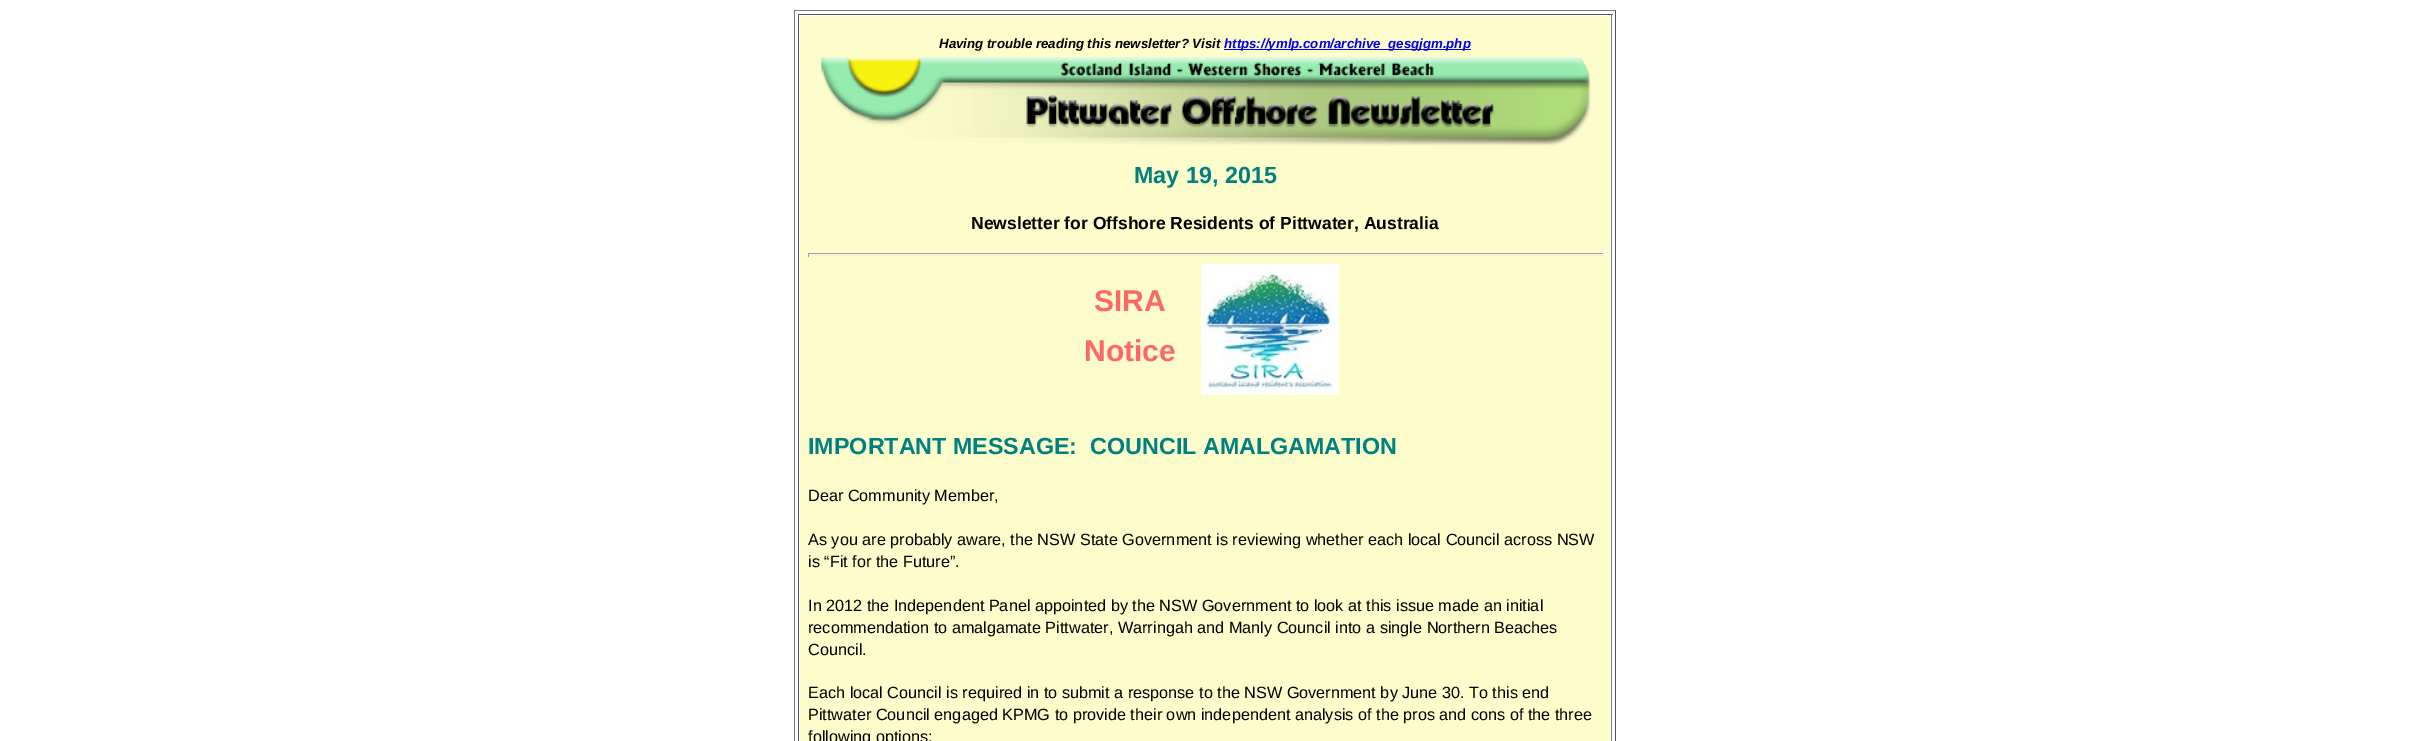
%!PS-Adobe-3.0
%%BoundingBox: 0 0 2409 741
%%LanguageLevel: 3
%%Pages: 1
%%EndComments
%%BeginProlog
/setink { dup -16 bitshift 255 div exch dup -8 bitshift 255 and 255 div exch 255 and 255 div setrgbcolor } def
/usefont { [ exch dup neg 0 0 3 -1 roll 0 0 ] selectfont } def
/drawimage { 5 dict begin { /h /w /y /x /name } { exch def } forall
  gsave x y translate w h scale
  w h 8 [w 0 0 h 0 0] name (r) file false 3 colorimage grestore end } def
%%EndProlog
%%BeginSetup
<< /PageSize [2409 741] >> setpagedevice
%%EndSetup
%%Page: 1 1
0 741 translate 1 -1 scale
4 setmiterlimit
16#FFFFFF setink
0 0 2409 741 rectfill
[
    [794 10 822 1 16#808080]
    [1615 10 1 731 16#555555]
    [794 10 1 731 16#808080]
    [798 14 815 1 16#555555]
    [1611 14 1 727 16#808080]
    [798 14 1 727 16#555555]
    [800 16 810 725 16#FCFDCB]
] { aload pop setink rectfill } forall
/LiberationSans-BoldItalic 13.3 usefont
16#000000 setink
939 48 moveto (Having trouble reading this newsletter? Visit) show
16#0000EE setink
1224 49 247 1 rectfill
1224 48 moveto (https://ymlp.com/archive_gesgjgm.php) show
(img1.raw) 821 57 770 89 drawimage
/LiberationSans-Bold 23.3 usefont
16#008080 setink
1134 183 moveto (May 19, 2015) show
/LiberationSans-Bold 17.5 usefont
16#000000 setink
971 229 moveto (Newsletter for Offshore Residents of Pittwater, Australia) show
[
    [808 253 796 1 16#9F9F9F]
    [1603 253 1 4 16#EEEEEE]
    [808 255 796 1 16#EEEEEE]
    [808 253 1 4 16#9F9F9F]
] { aload pop setink rectfill } forall
/LiberationSans-Bold 30 usefont
16#FF6666 setink
1094 311 moveto (SIRA) show
1084 361 moveto (Notice) show
(img2.raw) 1201 263 138 132 drawimage
/LiberationSans-Bold 23.3 usefont
16#008080 setink
808 454 moveto (IMPORTANT MESSAGE:  COUNCIL AMALGAMATION) show
/LiberationSans-Regular 16.25 usefont
16#000000 setink
[
    [(Dear Community Member,) 808 501]
    [(As you are probably aware, the NSW State Government is reviewing whether each local Council across NSW) 808 545]
    [(is “Fit for the Future”.) 808 567]
    [(In 2012 the Independent Panel appointed by the NSW Government to look at this issue made an initial) 808 611]
    [(recommendation to amalgamate Pittwater, Warringah and Manly Council into a single Northern Beaches) 808 633]
    [(Council.) 808 655]
    [(Each local Council is required in to submit a response to the NSW Government by June 30. To this end) 808 698]
    [(Pittwater Council engaged KPMG to provide their own independent analysis of the pros and cons of the three) 808 720]
    [(following options:) 808 742]
] { aload pop moveto show } forall
showpage
%%EOF
